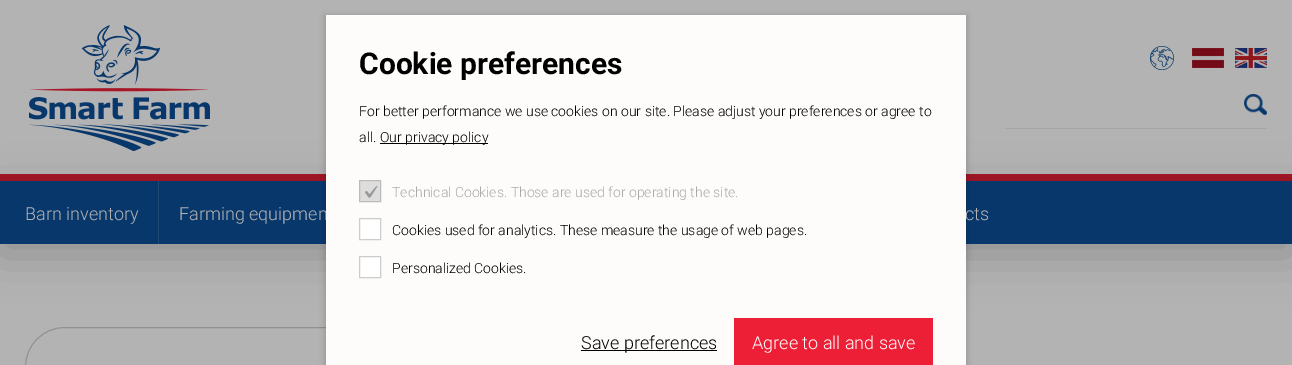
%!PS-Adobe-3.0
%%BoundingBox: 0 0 1292 365
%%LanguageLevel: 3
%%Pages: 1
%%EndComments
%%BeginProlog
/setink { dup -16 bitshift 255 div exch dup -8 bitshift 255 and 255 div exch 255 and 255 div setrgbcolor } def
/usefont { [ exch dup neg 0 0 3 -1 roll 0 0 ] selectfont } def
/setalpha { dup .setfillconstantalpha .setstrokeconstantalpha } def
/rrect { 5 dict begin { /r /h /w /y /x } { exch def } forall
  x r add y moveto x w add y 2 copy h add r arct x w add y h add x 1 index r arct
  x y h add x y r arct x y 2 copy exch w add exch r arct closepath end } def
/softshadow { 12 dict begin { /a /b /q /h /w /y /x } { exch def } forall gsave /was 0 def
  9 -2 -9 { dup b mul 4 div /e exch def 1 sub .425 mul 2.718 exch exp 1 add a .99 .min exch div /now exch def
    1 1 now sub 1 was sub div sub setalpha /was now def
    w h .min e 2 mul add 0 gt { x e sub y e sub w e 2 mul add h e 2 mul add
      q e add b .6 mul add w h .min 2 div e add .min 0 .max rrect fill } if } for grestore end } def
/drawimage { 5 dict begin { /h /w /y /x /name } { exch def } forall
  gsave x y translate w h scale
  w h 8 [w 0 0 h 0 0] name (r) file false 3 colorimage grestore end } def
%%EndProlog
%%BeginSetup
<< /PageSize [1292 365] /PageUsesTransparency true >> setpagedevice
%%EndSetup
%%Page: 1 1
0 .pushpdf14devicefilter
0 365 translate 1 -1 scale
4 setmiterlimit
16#B3B3B3 setink
0 0 1292 365 rectfill
16#A61626 setink
0 174 1292 7 rectfill
(img2.raw) 29 25 181 126 drawimage
16#A2A5A9 setink
1267 129 moveto 1005 129 lineto 1006 128 lineto 1266 128 lineto closepath fill
16#000000 setink
0 192 1292 63 0 22.5 0.2 softshadow
16#08376B setink
0 181 1292 63 rectfill
16#929293 setink
65 327.5 moveto 380.5 327.5 lineto 380.5 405.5 lineto 25.5 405.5 lineto 25.5 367 lineto 25.5 345 43 327.5 65 327.5 curveto closepath stroke
16#000000 setink
324 15 644 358 0 2.5 0.12 softshadow
/Roboto-Light 18 usefont
16#B3B3B3 setink
179 220 moveto (Farming equipmen) show
965 220 moveto (cts) show
16#FDFCFA setink
326 15 640 350 rectfill
/Roboto-Bold 30 usefont
16#000000 setink
359 74 moveto (Cookie preferences) show
/Roboto-Light 14 usefont
359 116 moveto (For better performance we use cookies on our site. Please adjust your preferences or agree to) show
359 142 moveto (all.) show
380 143 108 1 rectfill
380 142 moveto (Our privacy policy) show
16#DDDDDD setink
359.5 180.5 moveto 380.5 180.5 lineto 380.5 201.5 lineto 359.5 201.5 lineto closepath gsave fill grestore
16#BBBBBB setink
stroke
(img1.raw) 365 185 13 13 drawimage
16#AAAAAA setink
392 197 moveto (Technical Cookies. Those are used for operating the site.) show
16#FFFFFF setink
359.5 218.5 moveto 380.5 218.5 lineto 380.5 239.5 lineto 359.5 239.5 lineto closepath gsave fill grestore
16#CCCCCB setink
stroke
16#000000 setink
392 235 moveto (Cookies used for analytics. These measure the usage of web pages.) show
16#FFFFFF setink
359.5 256.5 moveto 380.5 256.5 lineto 380.5 277.5 lineto 359.5 277.5 lineto closepath gsave fill grestore
16#CCCCCB setink
stroke
16#000000 setink
392 273 moveto (Personalized Cookies.) show
581 350 136 1 rectfill
/Roboto-Light 18 usefont
581 349 moveto (Save preferences) show
16#ED1F36 setink
734 318 199 47 rectfill
16#FFFFFF setink
752 349 moveto (Agree to all and save) show
(img3.raw) 1150 46 24 24 drawimage
(img4.raw) 1192 48 32 20 drawimage
(img5.raw) 1235 48 32 20 drawimage
(img6.raw) 1244 94 23 21 drawimage
16#B3B3B3 setink
25 220 moveto (Barn inventory) show
16#214976 setink
158 181 1 63 rectfill
.poppdf14devicefilter showpage
%%EOF
